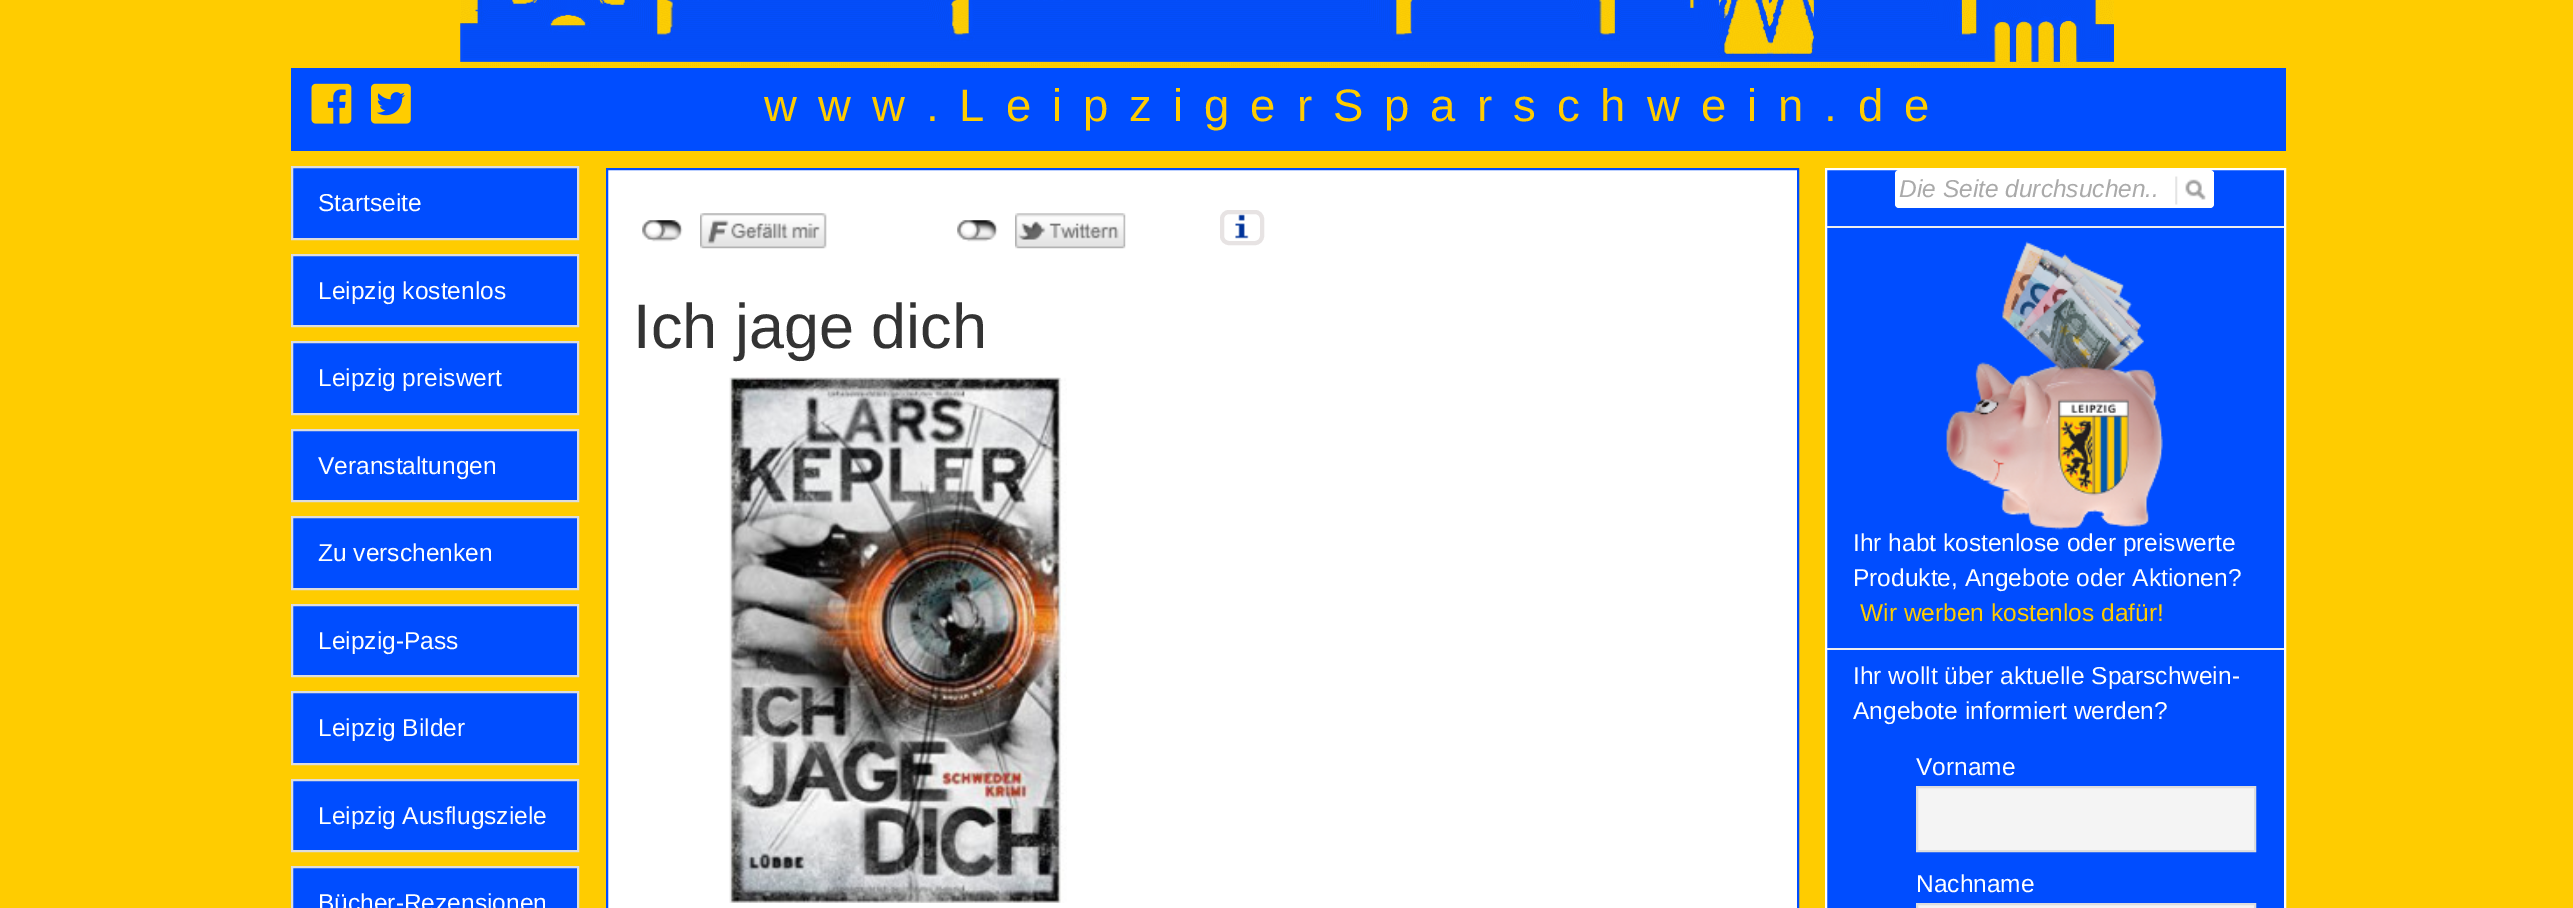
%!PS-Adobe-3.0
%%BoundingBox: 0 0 2573 908
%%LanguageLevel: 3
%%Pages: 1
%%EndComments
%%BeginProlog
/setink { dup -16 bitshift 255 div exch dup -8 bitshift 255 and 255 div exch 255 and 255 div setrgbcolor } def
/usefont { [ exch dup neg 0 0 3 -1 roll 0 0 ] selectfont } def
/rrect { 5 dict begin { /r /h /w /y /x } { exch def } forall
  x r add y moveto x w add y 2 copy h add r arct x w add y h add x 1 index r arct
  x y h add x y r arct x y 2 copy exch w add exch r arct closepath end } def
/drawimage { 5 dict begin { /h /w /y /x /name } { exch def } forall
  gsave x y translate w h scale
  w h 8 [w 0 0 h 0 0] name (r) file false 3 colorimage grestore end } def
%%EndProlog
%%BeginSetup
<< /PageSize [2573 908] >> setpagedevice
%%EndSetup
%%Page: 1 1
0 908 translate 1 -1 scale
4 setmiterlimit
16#FFCC00 setink
0 0 2573 908 rectfill
(img1.raw) 460 0 1654 66 drawimage
16#004DFF setink
291 68 1995 83 rectfill
(img2.raw) 311 83 41 41 drawimage
(img3.raw) 371 83 40 41 drawimage
/LiberationSans-Regular 45.5 usefont
16#FFCC00 setink
764 121 moveto 21 0 (www.LeipzigerSparschwein.de) ashow
16#004DFF setink
292 167 moveto 578 167 lineto 578 239 lineto 292 239 lineto closepath gsave fill grestore
16#DDDDDD setink
2 setlinewidth
stroke
/LiberationSans-Regular 24.5 usefont
16#FFFFFF setink
318 211 moveto (Startseite) show
16#004DFF setink
292 255 moveto 578 255 lineto 578 326 lineto 292 326 lineto closepath gsave fill grestore
16#DDDDDD setink
stroke
16#FFFFFF setink
318 299 moveto (Leipzig kostenlos) show
16#004DFF setink
292 342 moveto 578 342 lineto 578 414 lineto 292 414 lineto closepath gsave fill grestore
16#DDDDDD setink
stroke
16#FFFFFF setink
318 386 moveto (Leipzig preiswert) show
16#004DFF setink
292 430 moveto 578 430 lineto 578 501 lineto 292 501 lineto closepath gsave fill grestore
16#DDDDDD setink
stroke
16#FFFFFF setink
318 474 moveto (Veranstaltungen) show
16#004DFF setink
292 517 moveto 578 517 lineto 578 589 lineto 292 589 lineto closepath gsave fill grestore
16#DDDDDD setink
stroke
16#FFFFFF setink
318 561 moveto (Zu verschenken) show
16#004DFF setink
292 605 moveto 578 605 lineto 578 676 lineto 292 676 lineto closepath gsave fill grestore
16#DDDDDD setink
stroke
16#FFFFFF setink
318 649 moveto (Leipzig-Pass) show
16#004DFF setink
292 692 moveto 578 692 lineto 578 764 lineto 292 764 lineto closepath gsave fill grestore
16#DDDDDD setink
stroke
16#FFFFFF setink
318 736 moveto (Leipzig Bilder) show
16#004DFF setink
292 780 moveto 578 780 lineto 578 851 lineto 292 851 lineto closepath gsave fill grestore
16#DDDDDD setink
stroke
16#FFFFFF setink
318 824 moveto (Leipzig Ausflugsziele) show
16#004DFF setink
292 867 moveto 578 867 lineto 578 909 lineto 292 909 lineto closepath gsave fill grestore
16#DDDDDD setink
stroke
16#FFFFFF setink
318 911 moveto (Bücher-Rezensionen) show
607 169 moveto 1798 169 lineto 1798 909 lineto 607 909 lineto closepath gsave fill grestore
16#004DFF setink
stroke
(img4.raw) 642 220 41 22 drawimage
(img5.raw) 700 213 127 36 drawimage
(img4.raw) 957 220 41 22 drawimage
(img6.raw) 1015 213 111 36 drawimage
(img7.raw) 1235 214 14 25 drawimage
16#E7E3E3 setink
4 setlinewidth
1222 212 40 31 7 rrect stroke
/LiberationSans-Regular 63 usefont
16#333333 setink
633 348 moveto (Ich jage dich) show
(img8.raw) 729 377 338 526 drawimage
16#004DFF setink
1826 169 moveto 2285 169 lineto 2285 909 lineto 1826 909 lineto closepath gsave fill grestore
16#FFFFFF setink
2 setlinewidth
stroke
1895 170 319 38 4 rrect fill
2213 172 1 33 rectfill
/LiberationSans-Italic 24.5 usefont
16#AAAAAA setink
1899 197 moveto (Die Seite durchsuchen..) show
(img9.raw) 2175 176 31 29 drawimage
16#EEEEEE setink
1827 226 457 2 rectfill
(img10.raw) 1946 241 217 289 drawimage
/LiberationSans-Regular 24.5 usefont
16#FFFFFF setink
1853 551 moveto (Ihr habt kostenlose oder preiswerte) show
1853 586 moveto (Produkte, Angebote oder Aktionen?) show
16#FFCC00 setink
1860 621 moveto (Wir werben kostenlos dafür!) show
16#EEEEEE setink
1827 648 457 2 rectfill
16#FFFFFF setink
[
    [(Ihr wollt über aktuelle Sparschwein-) 1853 684]
    [(Angebote informiert werden?) 1853 719]
    [(Vorname) 1916 775]
] { aload pop moveto show } forall
16#F4F4F4 setink
1917 787 moveto 2255 787 lineto 2255 851 lineto 1917 851 lineto closepath gsave fill grestore
16#DDDDDD setink
stroke
16#FFFFFF setink
1916 892 moveto (Nachname) show
16#F4F4F4 setink
1917 904 moveto 2255 904 lineto 2255 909 lineto 1917 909 lineto closepath gsave fill grestore
16#DDDDDD setink
stroke
showpage
%%EOF
